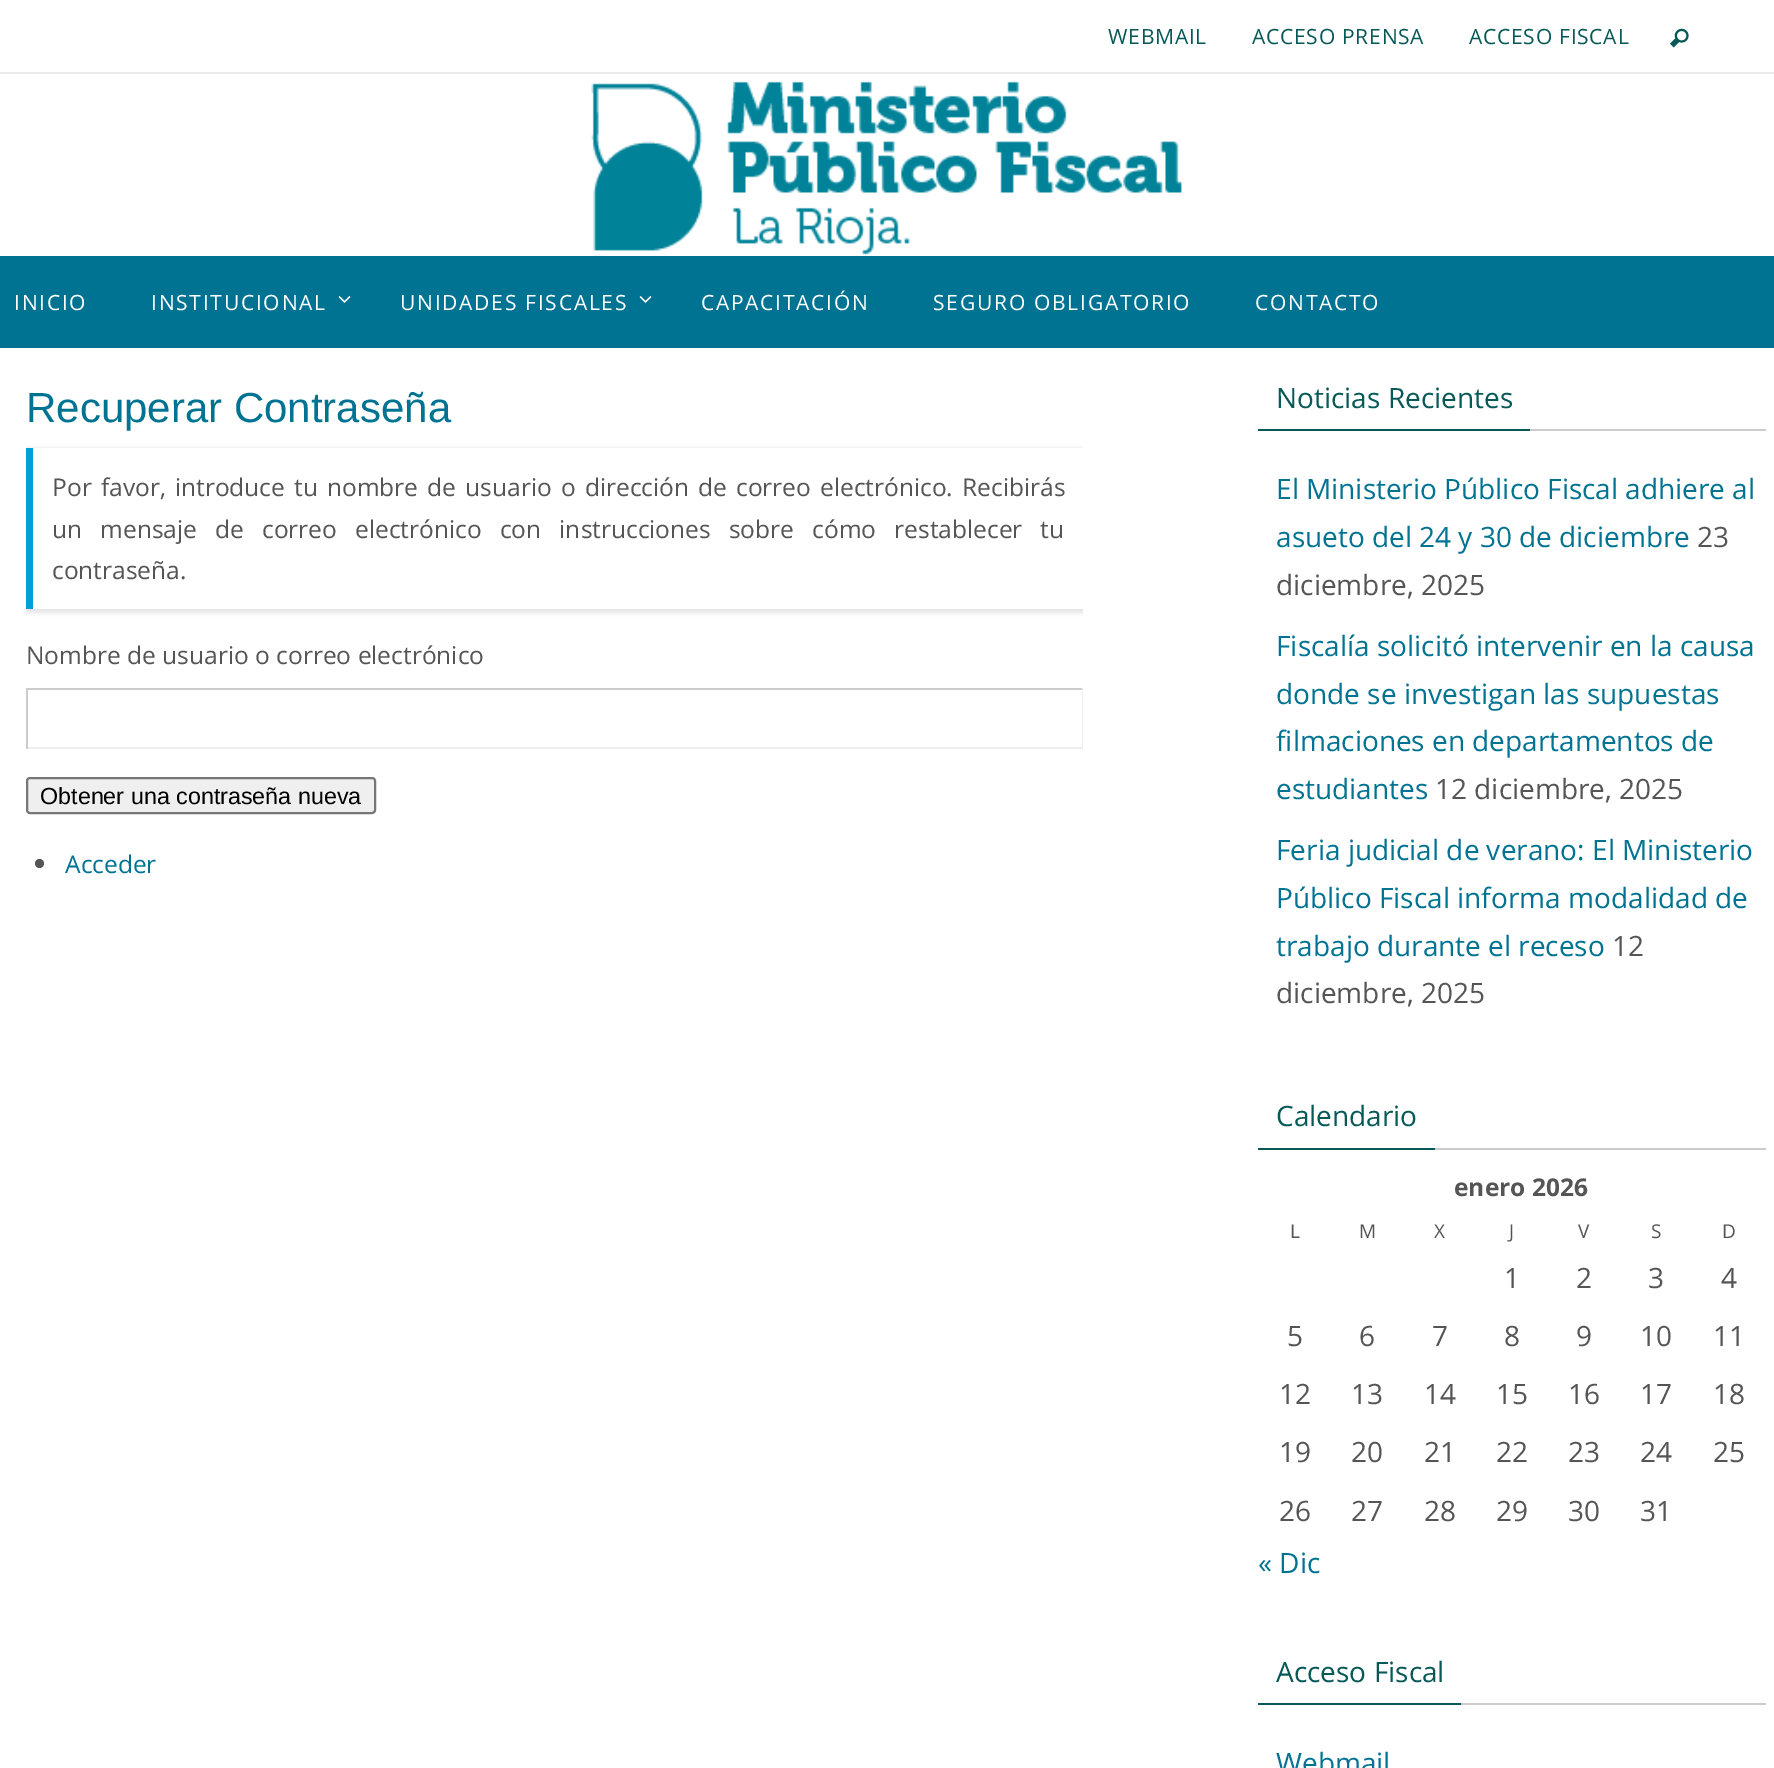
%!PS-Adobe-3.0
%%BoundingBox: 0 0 1774 1768
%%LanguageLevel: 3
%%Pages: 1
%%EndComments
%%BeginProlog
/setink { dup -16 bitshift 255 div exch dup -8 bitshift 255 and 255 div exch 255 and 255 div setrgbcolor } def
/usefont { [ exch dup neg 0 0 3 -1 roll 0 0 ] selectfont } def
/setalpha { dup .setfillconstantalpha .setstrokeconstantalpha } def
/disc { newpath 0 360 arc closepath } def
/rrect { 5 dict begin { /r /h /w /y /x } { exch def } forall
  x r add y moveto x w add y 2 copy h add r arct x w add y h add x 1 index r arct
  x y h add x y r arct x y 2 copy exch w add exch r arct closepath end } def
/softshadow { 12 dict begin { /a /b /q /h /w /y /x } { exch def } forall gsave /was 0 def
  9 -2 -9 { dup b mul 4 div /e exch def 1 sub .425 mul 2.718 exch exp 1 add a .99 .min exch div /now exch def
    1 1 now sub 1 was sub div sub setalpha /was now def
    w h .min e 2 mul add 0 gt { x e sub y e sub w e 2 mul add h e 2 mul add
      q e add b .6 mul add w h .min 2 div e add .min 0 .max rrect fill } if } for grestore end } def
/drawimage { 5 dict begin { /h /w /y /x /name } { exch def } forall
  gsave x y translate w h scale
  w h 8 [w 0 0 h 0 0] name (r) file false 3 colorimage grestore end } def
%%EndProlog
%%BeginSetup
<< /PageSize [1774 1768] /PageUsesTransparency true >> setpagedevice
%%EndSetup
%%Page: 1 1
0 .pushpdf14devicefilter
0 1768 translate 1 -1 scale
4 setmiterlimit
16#FFFFFF setink
0 0 1774 1768 rectfill
16#EBEBEB setink
0 72 1774 2 rectfill
/OpenSans-Regular 21 usefont
16#075957 setink
1108 44 moveto 0.75 0 (WEBMAIL) ashow
1252 44 moveto 0.75 0 (ACCESO PRENSA) ashow
1469 44 moveto 0.75 0 (ACCESO FISCAL) ashow
(img1.raw) 1670 28 19 20 drawimage
(img2.raw) 591 81 591 174 drawimage
16#007393 setink
0 256 1774 92 rectfill
16#FFFFFF setink
14 310 moveto 1.75 0 (INICIO) ashow
151 310 moveto 1.75 0 (INSTITUCIONAL) ashow
(img3.raw) 338 296 13 7 drawimage
400 310 moveto 1.75 0 (UNIDADES FISCALES) ashow
(img3.raw) 639 296 13 7 drawimage
701 310 moveto 1.75 0 (CAPACITACIÓN) ashow
933 310 moveto 1.75 0 (SEGURO OBLIGATORIO) ashow
1255 310 moveto 1.75 0 (CONTACTO) ashow
/LiberationSans-Regular 42 usefont
16#007393 setink
26 422 moveto (Recuperar Contraseña) show
gsave
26 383 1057 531 rectclip
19 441 moveto 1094 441 lineto 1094 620 lineto 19 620 lineto closepath 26 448 moveto 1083 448 lineto 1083 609 lineto 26 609 lineto closepath eoclip newpath
16#000000 setink
26 448 1061 165 0 2 0.1 softshadow
grestore
16#00A0D2 setink
26 448 7 161 rectfill
/OpenSans-Regular 24.5 usefont
16#555555 setink
52 496 moveto 2.75 0 32 (Por favor, introduce tu nombre de usuario o dirección de correo electrónico. Recibirás) widthshow
52 538 moveto 11.75 0 32 (un mensaje de correo electrónico con instrucciones sobre cómo restablecer tu) widthshow
52 579 moveto (contraseña.) show
26 664 moveto (Nombre de usuario o correo electrónico) show
[
    [26 688 1057 2 16#CCCCCC]
    [1082 688 1 61 16#EEEEEE]
    [26 747 1057 2 16#EEEEEE]
    [26 688 2 61 16#CCCCCC]
] { aload pop setink rectfill } forall
16#EFEFEF setink
27 778 348 35 3 rrect gsave fill grestore
16#767676 setink
2 setlinewidth
stroke
/LiberationSans-Regular 23.3 usefont
16#000000 setink
40 804 moveto (Obtener una contraseña nueva) show
16#555555 setink
39.5 863.5 4.5 disc fill
/OpenSans-Regular 24.5 usefont
16#007393 setink
65 873 moveto (Acceder) show
16#CCCCCC setink
1530 429 236 2 rectfill
16#075957 setink
1258 429 272 2 rectfill
/OpenSans-Regular 28 usefont
1276 408 moveto (Noticias Recientes) show
16#007393 setink
1276 499 moveto (El Ministerio Público Fiscal adhiere al) show
1276 547 moveto (asueto del 24 y 30 de diciembre) show
16#555555 setink
1697 547 moveto (23) show
1276 595 moveto (diciembre, 2025) show
16#007393 setink
[
    [(Fiscalía solicitó intervenir en la causa) 1276 656]
    [(donde se investigan las supuestas) 1276 704]
    [(filmaciones en departamentos de) 1276 751]
    [(estudiantes) 1276 799]
] { aload pop moveto show } forall
16#555555 setink
1435 799 moveto (12 diciembre, 2025) show
16#007393 setink
[
    [(Feria judicial de verano: El Ministerio) 1276 860]
    [(Público Fiscal informa modalidad de) 1276 908]
    [(trabajo durante el receso) 1276 956]
] { aload pop moveto show } forall
16#555555 setink
1612 956 moveto (12) show
1276 1003 moveto (diciembre, 2025) show
16#CCCCCC setink
1435 1148 331 2 rectfill
16#075957 setink
1258 1148 177 2 rectfill
1276 1126 moveto (Calendario) show
/OpenSans-Bold 24.5 usefont
16#555555 setink
1454 1196 moveto (enero 2026) show
/OpenSans-Regular 19 usefont
[
    [(L) 1290 1238]
    [(M) 1359 1238]
    [(X) 1434 1238]
    [(J) 1509 1238]
    [(V) 1578 1238]
    [(S) 1651 1238]
    [(D) 1722 1238]
] { aload pop moveto show } forall
/OpenSans-Regular 28 usefont
[
    [(1) 1504 1288]
    [(2) 1576 1288]
    [(3) 1648 1288]
    [(4) 1721 1288]
    [(5) 1287 1346]
    [(6) 1359 1346]
    [(7) 1432 1346]
    [(8) 1504 1346]
    [(9) 1576 1346]
    [(10) 1640 1346]
    [(11) 1713 1346]
    [(12) 1279 1404]
    [(13) 1351 1404]
    [(14) 1424 1404]
    [(15) 1496 1404]
    [(16) 1568 1404]
    [(17) 1640 1404]
    [(18) 1713 1404]
    [(19) 1279 1462]
    [(20) 1351 1462]
    [(21) 1424 1462]
    [(22) 1496 1462]
    [(23) 1568 1462]
    [(24) 1640 1462]
    [(25) 1713 1462]
    [(26) 1279 1521]
    [(27) 1351 1521]
    [(28) 1424 1521]
    [(29) 1496 1521]
    [(30) 1568 1521]
    [(31) 1640 1521]
] { aload pop moveto show } forall
16#007393 setink
1258 1573 moveto (« Dic) show
16#CCCCCC setink
1461 1703 305 2 rectfill
16#075957 setink
1258 1703 203 2 rectfill
1276 1682 moveto (Acceso Fiscal) show
16#007393 setink
1276 1773 moveto (Webmail) show
.poppdf14devicefilter showpage
%%EOF
